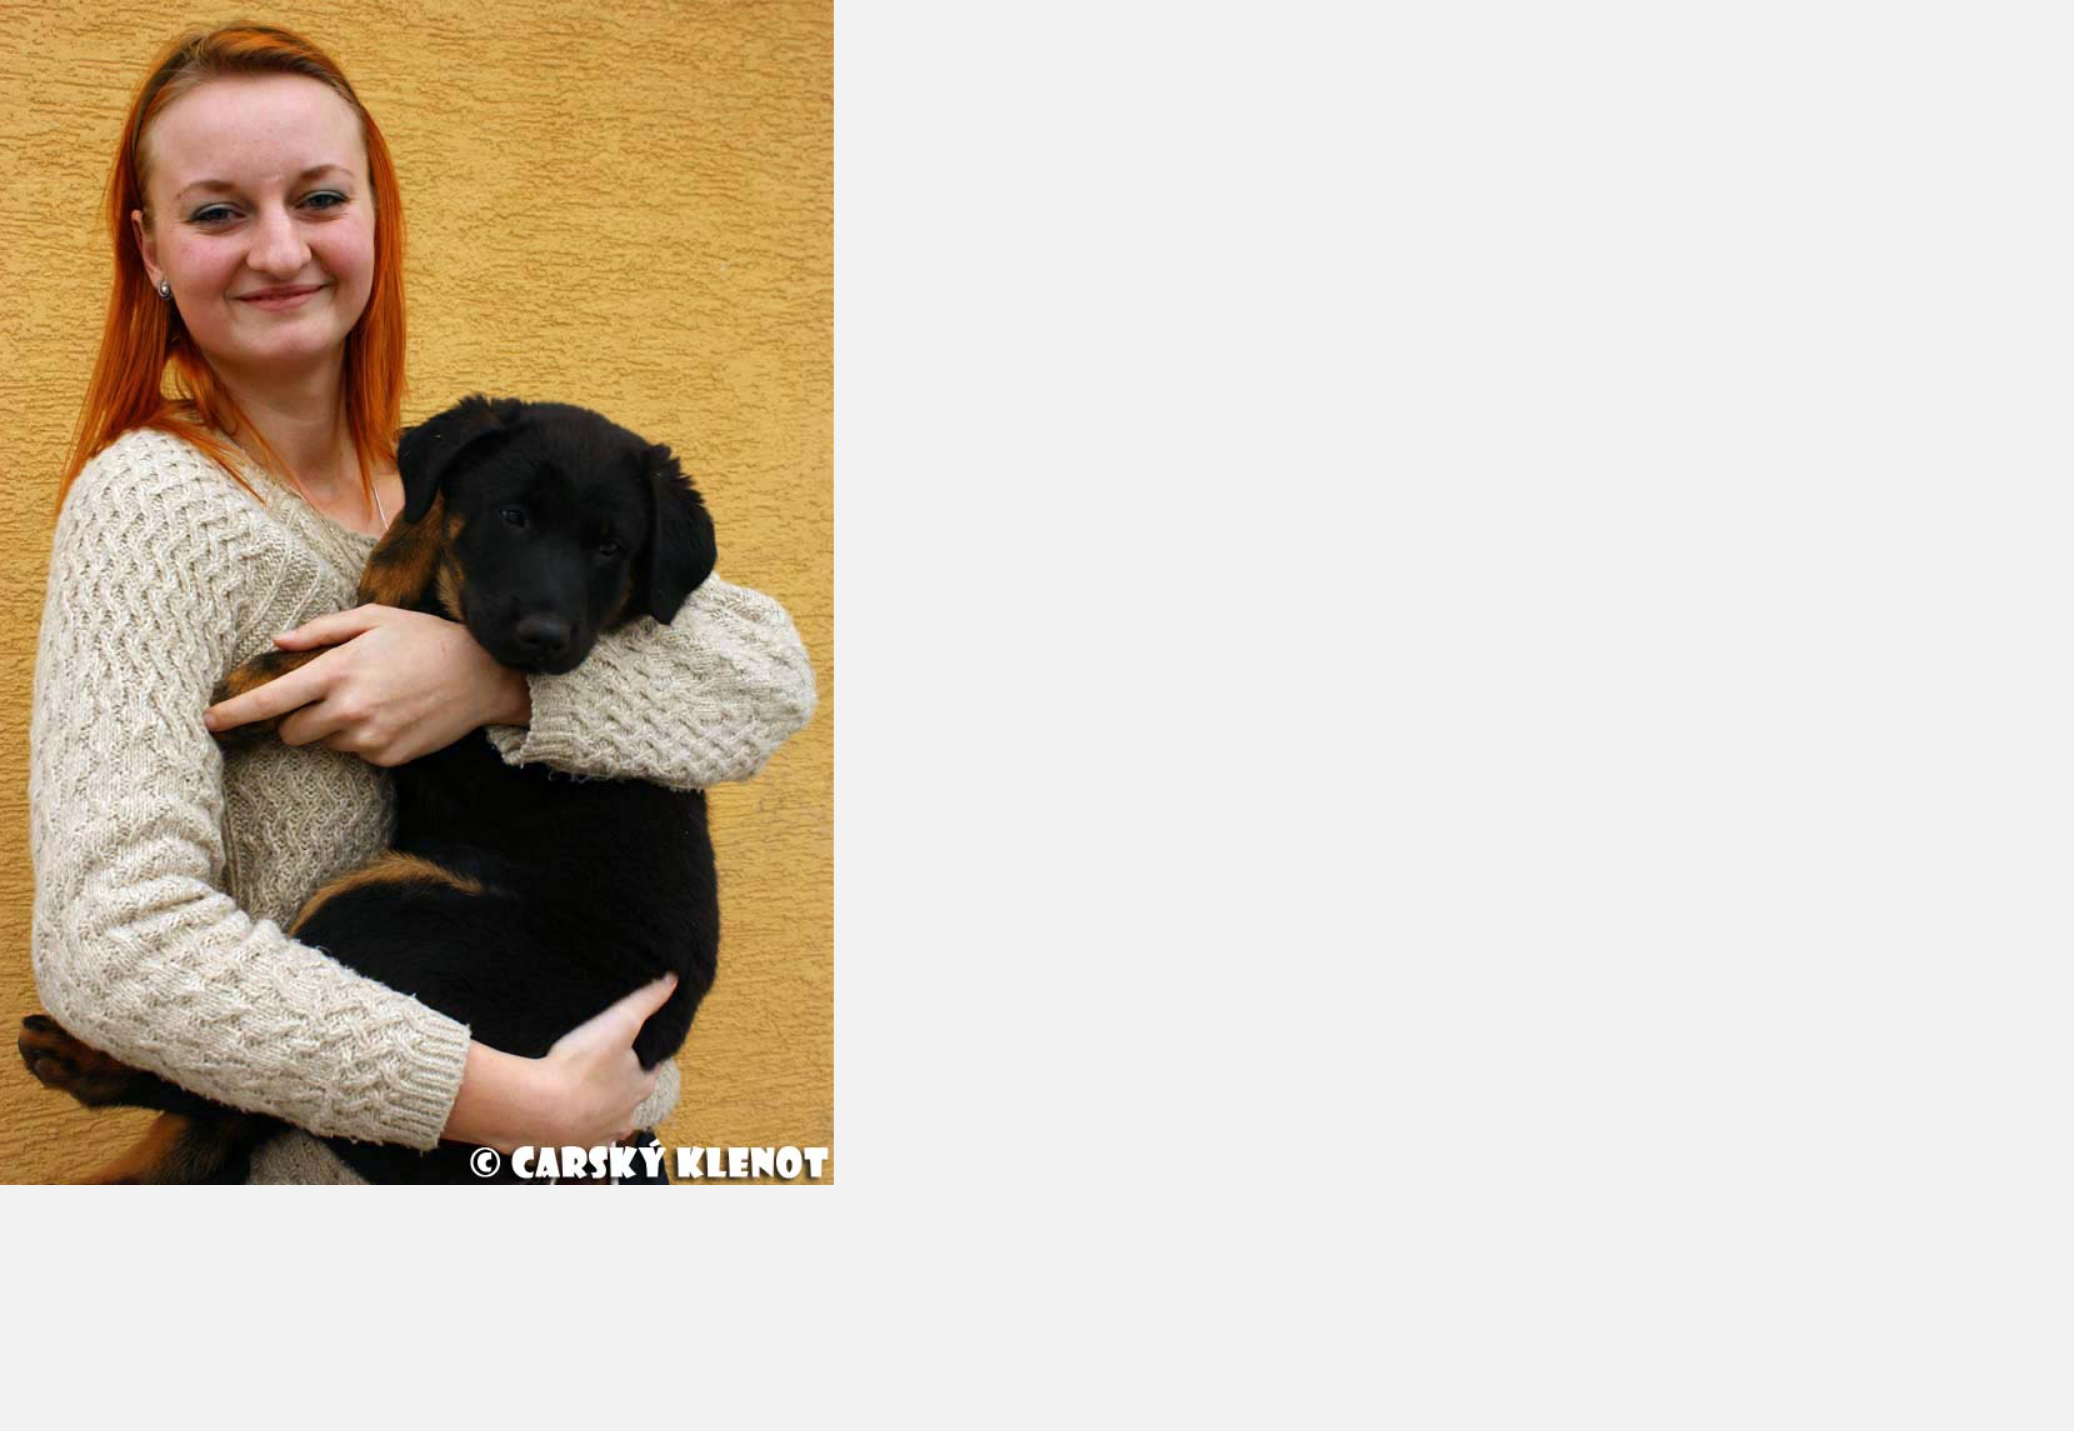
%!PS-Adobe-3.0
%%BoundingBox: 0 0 2074 1431
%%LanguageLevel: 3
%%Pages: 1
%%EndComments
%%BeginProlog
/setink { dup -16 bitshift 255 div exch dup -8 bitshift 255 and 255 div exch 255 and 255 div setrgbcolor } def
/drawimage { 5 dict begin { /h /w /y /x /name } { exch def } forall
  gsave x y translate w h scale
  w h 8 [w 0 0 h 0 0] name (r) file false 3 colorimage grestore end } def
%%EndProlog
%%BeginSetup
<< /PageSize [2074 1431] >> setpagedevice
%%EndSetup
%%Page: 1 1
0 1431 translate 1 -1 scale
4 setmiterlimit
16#F2F2F2 setink
0 0 2074 1431 rectfill
(img1.raw) 0 0 834 1185 drawimage
showpage
%%EOF
